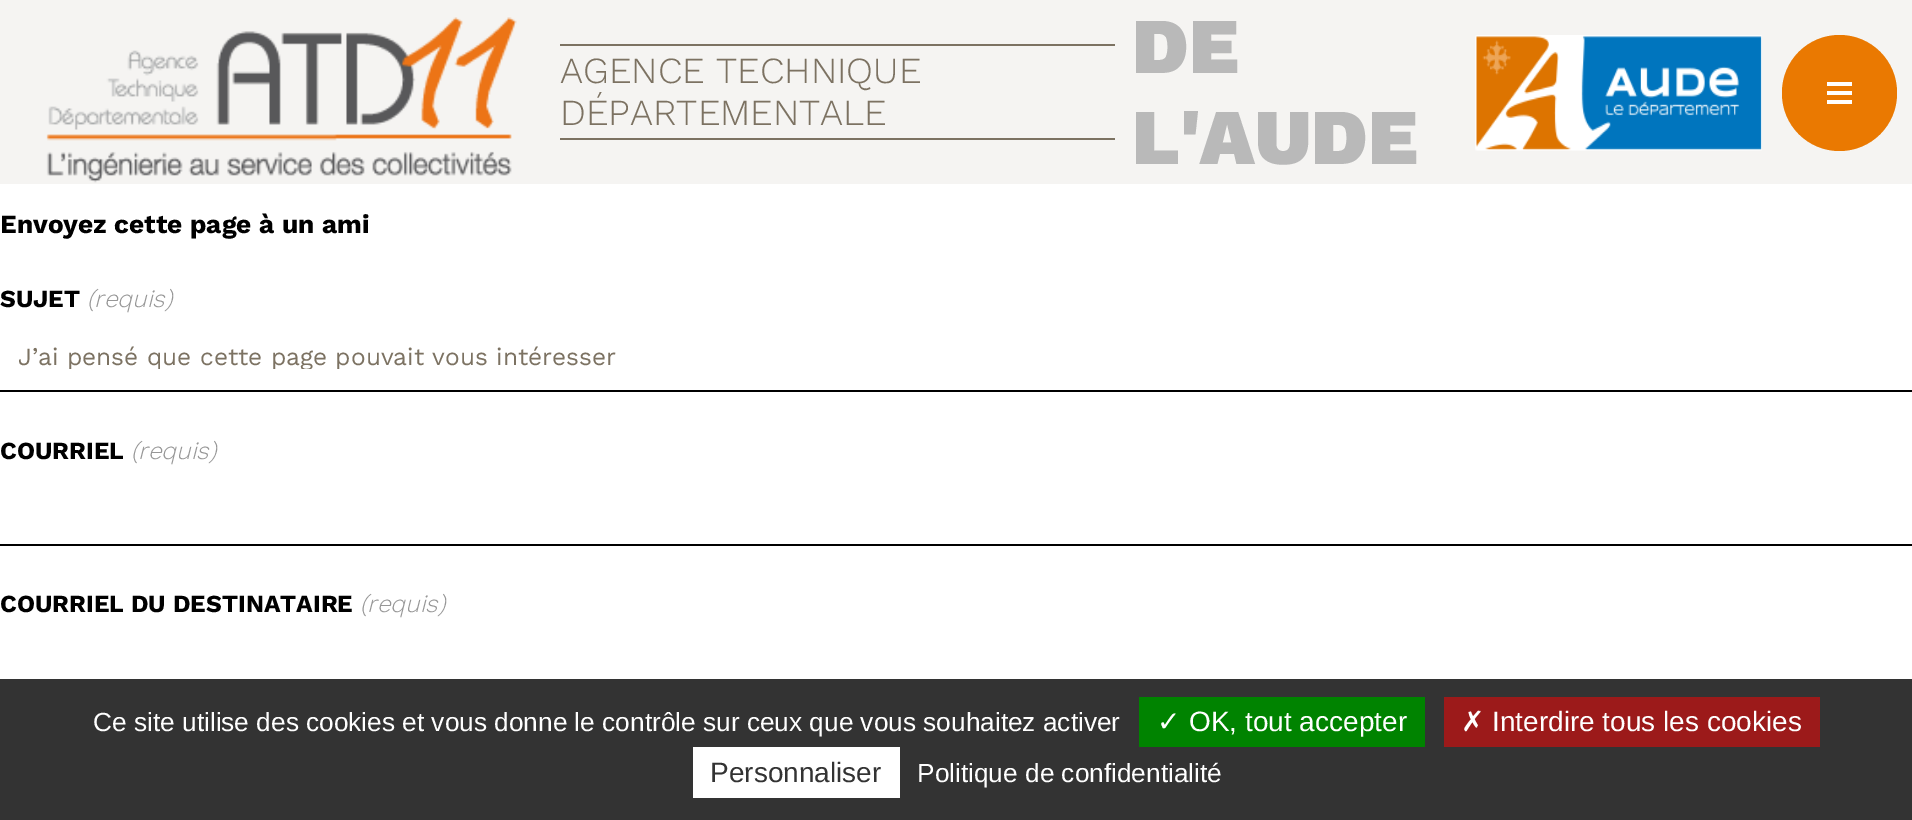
%!PS-Adobe-3.0
%%BoundingBox: 0 0 1912 820
%%LanguageLevel: 3
%%Pages: 1
%%EndComments
%%BeginProlog
/setink { dup -16 bitshift 255 div exch dup -8 bitshift 255 and 255 div exch 255 and 255 div setrgbcolor } def
/usefont { [ exch dup neg 0 0 3 -1 roll 0 0 ] selectfont } def
/rrect { 5 dict begin { /r /h /w /y /x } { exch def } forall
  x r add y moveto x w add y 2 copy h add r arct x w add y h add x 1 index r arct
  x y h add x y r arct x y 2 copy exch w add exch r arct closepath end } def
/drawimage { 5 dict begin { /h /w /y /x /name } { exch def } forall
  gsave x y translate w h scale
  w h 8 [w 0 0 h 0 0] name (r) file false 3 colorimage grestore end } def
%%EndProlog
%%BeginSetup
<< /PageSize [1912 820] >> setpagedevice
%%EndSetup
%%Page: 1 1
0 820 translate 1 -1 scale
4 setmiterlimit
16#FFFFFF setink
0 0 1912 820 rectfill
16#F5F4F2 setink
0 0 1912 184 rectfill
(img1.raw) 46 17 471 166 drawimage
16#7C7262 setink
560 44 555 2 rectfill
560 138 555 2 rectfill
/WorkSans-Light 36.75 usefont
560 83 moveto (AGENCE TECHNIQUE) show
560 125 moveto (DÉPARTEMENTALE) show
/WorkSans-Black 79 usefont
16#B9B9B9 setink
1132 73 moveto (DE) show
1132 164 moveto (L'AUDE) show
(img2.raw) 1475 35 287 116 drawimage
16#EA7901 setink
1782 35 115 116 57.5 rrect fill
[
    [1827 82 25 4 16#FFFFFF]
    [1827 91 25 4 16#FFFFFF]
    [1827 100 25 4 16#FFFFFF]
] { aload pop setink rectfill } forall
/WorkSans-Bold 26.25 usefont
16#000000 setink
0 233 moveto (Envoyez cette page à un ami) show
/WorkSans-Bold 24.5 usefont
0 307 moveto (SUJET) show
/WorkSans-LightItalic 24.5 usefont
16#979797 setink
87 307 moveto (\(requis\)) show
16#000000 setink
0 390 1912 2 rectfill
gsave
18 341 1877 28 rectclip
/WorkSans-Regular 24.5 usefont
16#7C7262 setink
18 365 moveto (J’ai pensé que cette page pouvait vous intéresser) show
grestore
/WorkSans-Bold 24.5 usefont
0 459 moveto (COURRIEL) show
/WorkSans-LightItalic 24.5 usefont
16#979797 setink
131 459 moveto (\(requis\)) show
16#000000 setink
0 544 1912 2 rectfill
/WorkSans-Bold 24.5 usefont
0 612 moveto (COURRIEL DU DESTINATAIRE) show
/WorkSans-LightItalic 24.5 usefont
16#979797 setink
360 612 moveto (\(requis\)) show
16#333333 setink
0 679 1912 141 rectfill
/LiberationSans-Regular 26.25 usefont
16#FFFFFF setink
93 731 moveto (Ce site utilise des cookies et vous donne le contrôle sur ceux que vous souhaitez activer) show
16#008300 setink
1139 697 286 50 rectfill
/DejaVuSans-Regular 28 usefont
16#FFFFFF setink
1157 731 moveto (✓) show
/LiberationSans-Regular 28 usefont
1189 731 moveto (OK, tout accepter) show
16#9C1A1A setink
1444 697 376 50 rectfill
/DejaVuSans-Regular 28 usefont
16#FFFFFF setink
1461 731 moveto (✗) show
/LiberationSans-Regular 28 usefont
1492 731 moveto (Interdire tous les cookies) show
693 747 207 51 rectfill
16#333333 setink
710 782 moveto (Personnaliser) show
/LiberationSans-Regular 26.25 usefont
16#FFFFFF setink
917 782 moveto (Politique de confidentialité) show
showpage
%%EOF
